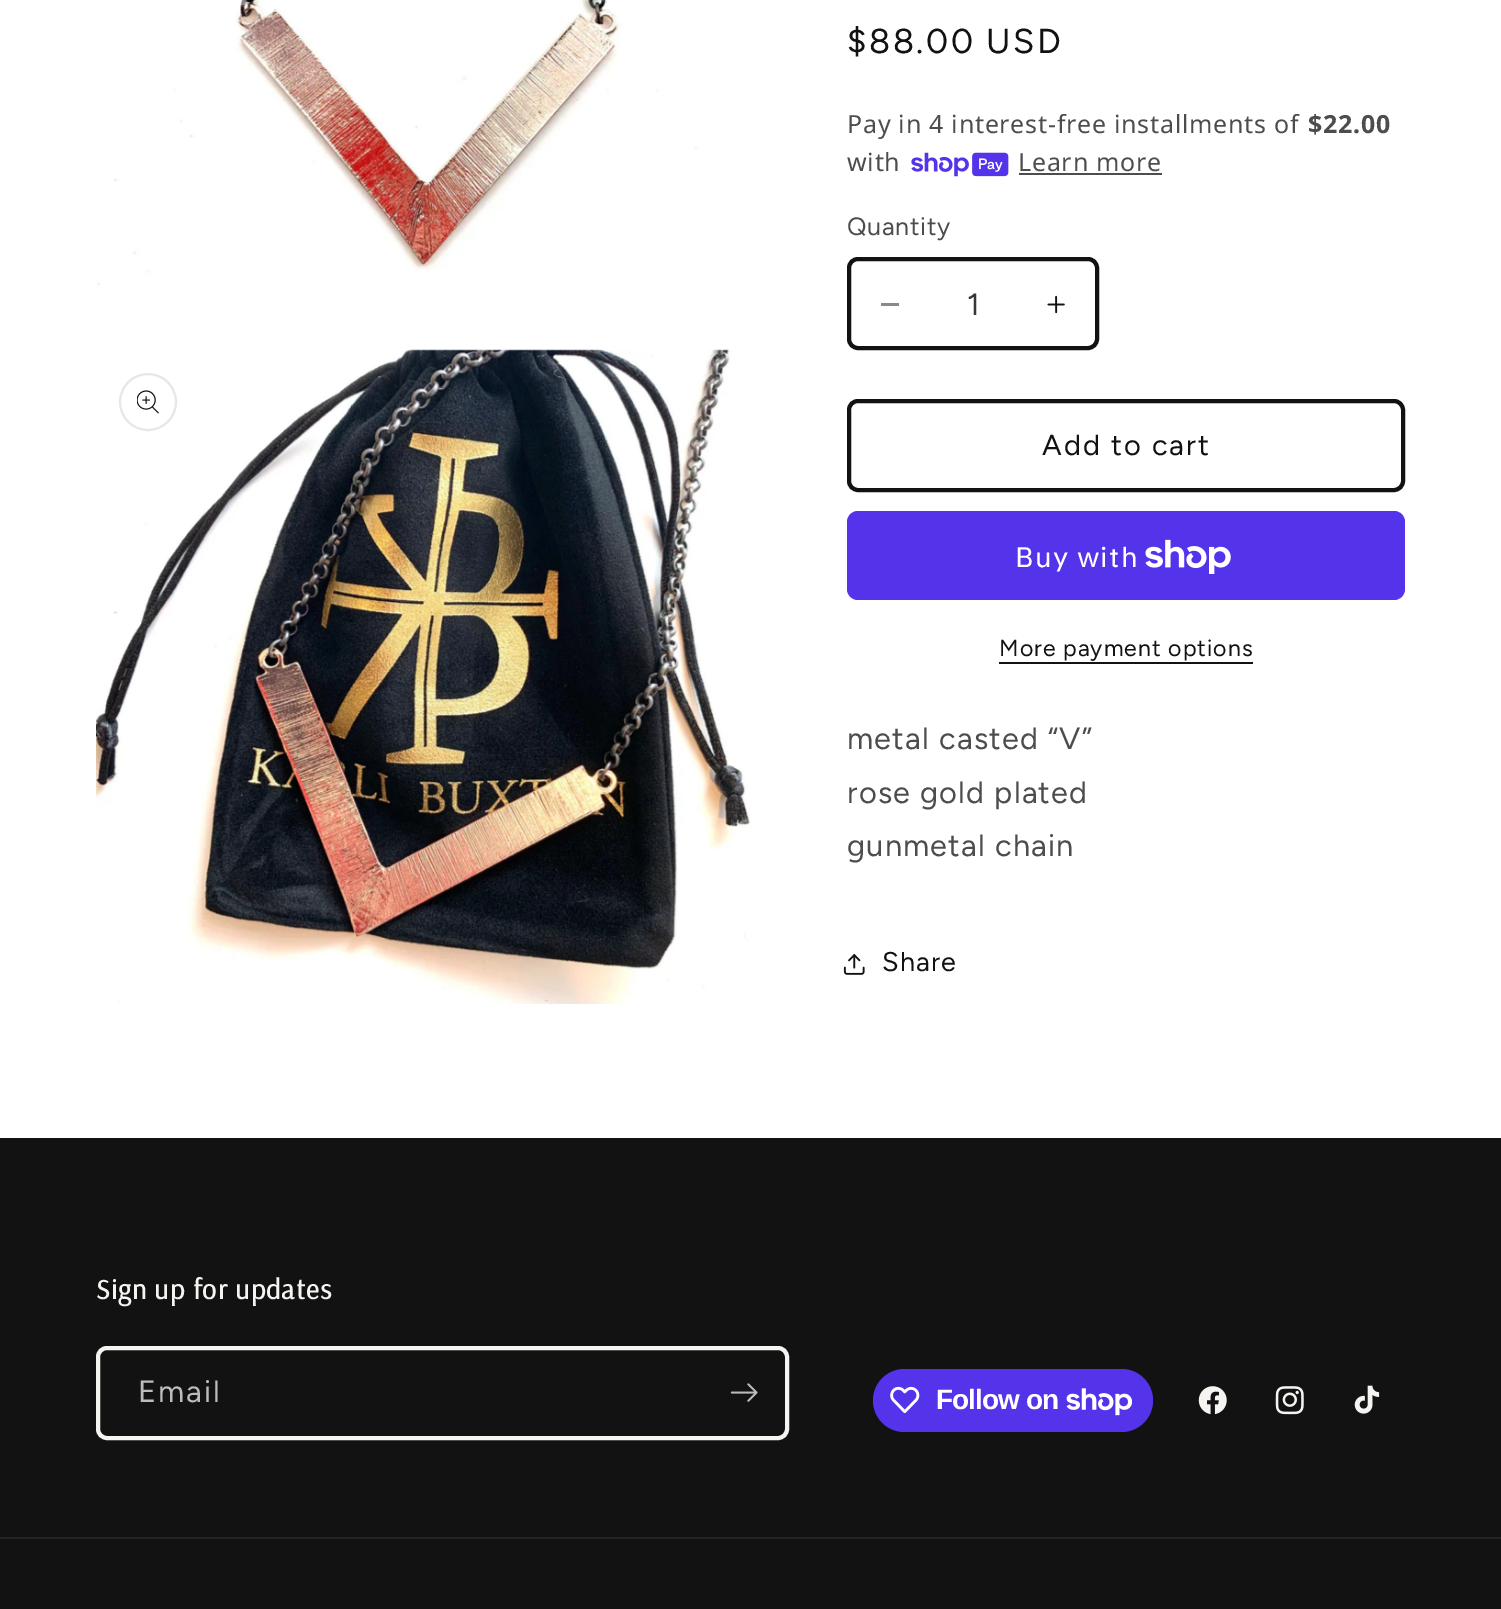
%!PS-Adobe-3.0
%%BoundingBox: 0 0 1501 1609
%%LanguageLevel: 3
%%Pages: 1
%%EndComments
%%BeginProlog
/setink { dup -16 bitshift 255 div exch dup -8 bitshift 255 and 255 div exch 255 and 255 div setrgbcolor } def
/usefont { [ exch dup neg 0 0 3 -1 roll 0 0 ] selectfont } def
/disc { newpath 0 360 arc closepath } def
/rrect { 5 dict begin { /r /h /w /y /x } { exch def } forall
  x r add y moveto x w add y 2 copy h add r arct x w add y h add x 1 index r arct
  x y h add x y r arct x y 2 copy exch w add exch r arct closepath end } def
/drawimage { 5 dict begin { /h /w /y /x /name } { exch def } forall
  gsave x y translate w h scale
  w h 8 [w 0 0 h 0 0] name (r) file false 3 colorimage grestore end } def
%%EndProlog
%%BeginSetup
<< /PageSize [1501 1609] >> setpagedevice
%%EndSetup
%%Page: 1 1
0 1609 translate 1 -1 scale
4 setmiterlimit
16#FFFFFF setink
0 0 1501 1609 rectfill
(img1.raw) 97 0 601 302 drawimage
(img2.raw) 96 349 654 655 drawimage
16#E7E7E7 setink
2 setlinewidth
148 402 28 disc stroke
(img3.raw) 137 390 22 24 drawimage
/Figtree-Regular 34.5 usefont
16#121212 setink
847 53 moveto 2.5 0 ($88.00 USD) ashow
/NotoSans-Regular 25 usefont
16#4D4D4D setink
847 133 moveto 0.75 0 (Pay in 4 interest-free installments of) ashow
/NotoSans-Bold 25 usefont
1308 133 moveto 0.75 0 ($22.00) ashow
/NotoSans-Regular 25 usefont
847 171 moveto 0.75 0 (with) ashow
(img4.raw) 911 152 98 25 drawimage
1018 171 moveto 0.75 0 (Learn more) ashow
1019 173 143 2 rectfill
/Figtree-Regular 25 usefont
847 235 moveto 0.75 0 (Quantity) ashow
16#898989 setink
881 303 18 3 rectfill
(img5.raw) 1047 295 18 19 drawimage
16#121212 setink
4 setlinewidth
849 259 248 89 9 rrect stroke
/Figtree-Regular 30.75 usefont
16#363636 setink
967 315 moveto (1) show
16#121212 setink
849 401 554 89 9 rrect stroke
/Figtree-Regular 29 usefont
1042 455 moveto 2 0 (Add to cart) ashow
16#5433EB setink
847 511 558 89 11 rrect fill
/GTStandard-Regular 28 usefont
16#FFFFFF setink
1015 567 moveto 1.2 0 (Buy with) ashow
(img6.raw) 1145 539 86 35 drawimage
/Figtree-Regular 23.1 usefont
16#121212 setink
999 656 moveto 1 0 (More payment options) ashow
999 662 254 2 rectfill
/Figtree-Regular 30.75 usefont
16#4D4D4D setink
847 749 moveto 1.2 0 (metal casted “V”) ashow
847 803 moveto 1.2 0 (rose gold plated) ashow
847 856 moveto 1.2 0 (gunmetal chain) ashow
(img7.raw) 843 954 22 21 drawimage
/Figtree-Regular 27 usefont
16#121212 setink
882 971 moveto 1.2 0 (Share) ashow
0 1138 1501 471 rectfill
/Arsenal-Bold 28 usefont
16#F5F4F0 setink
96 1299 moveto 1 0 (Sign up for updates) ashow
98 1348 689 90 9 rrect stroke
/Figtree-Regular 30.75 usefont
16#BCBCB9 setink
138 1402 moveto 2 0 (Email) ashow
(img8.raw) 730 1383 28 19 drawimage
16#5433EB setink
873 1369 280 63 31.5 rrect fill
(img9.raw) 890 1386 30 28 drawimage
/LiberationSans-Bold 28 usefont
16#FFFFFF setink
936 1409 moveto -0.9 0 (Follow on) ashow
(img10.raw) 1066 1388 66 28 drawimage
(img11.raw) 1198 1386 29 29 drawimage
(img12.raw) 1275 1386 29 29 drawimage
(img13.raw) 1354 1385 26 29 drawimage
16#242424 setink
0 1537 1501 2 rectfill
showpage
%%EOF
